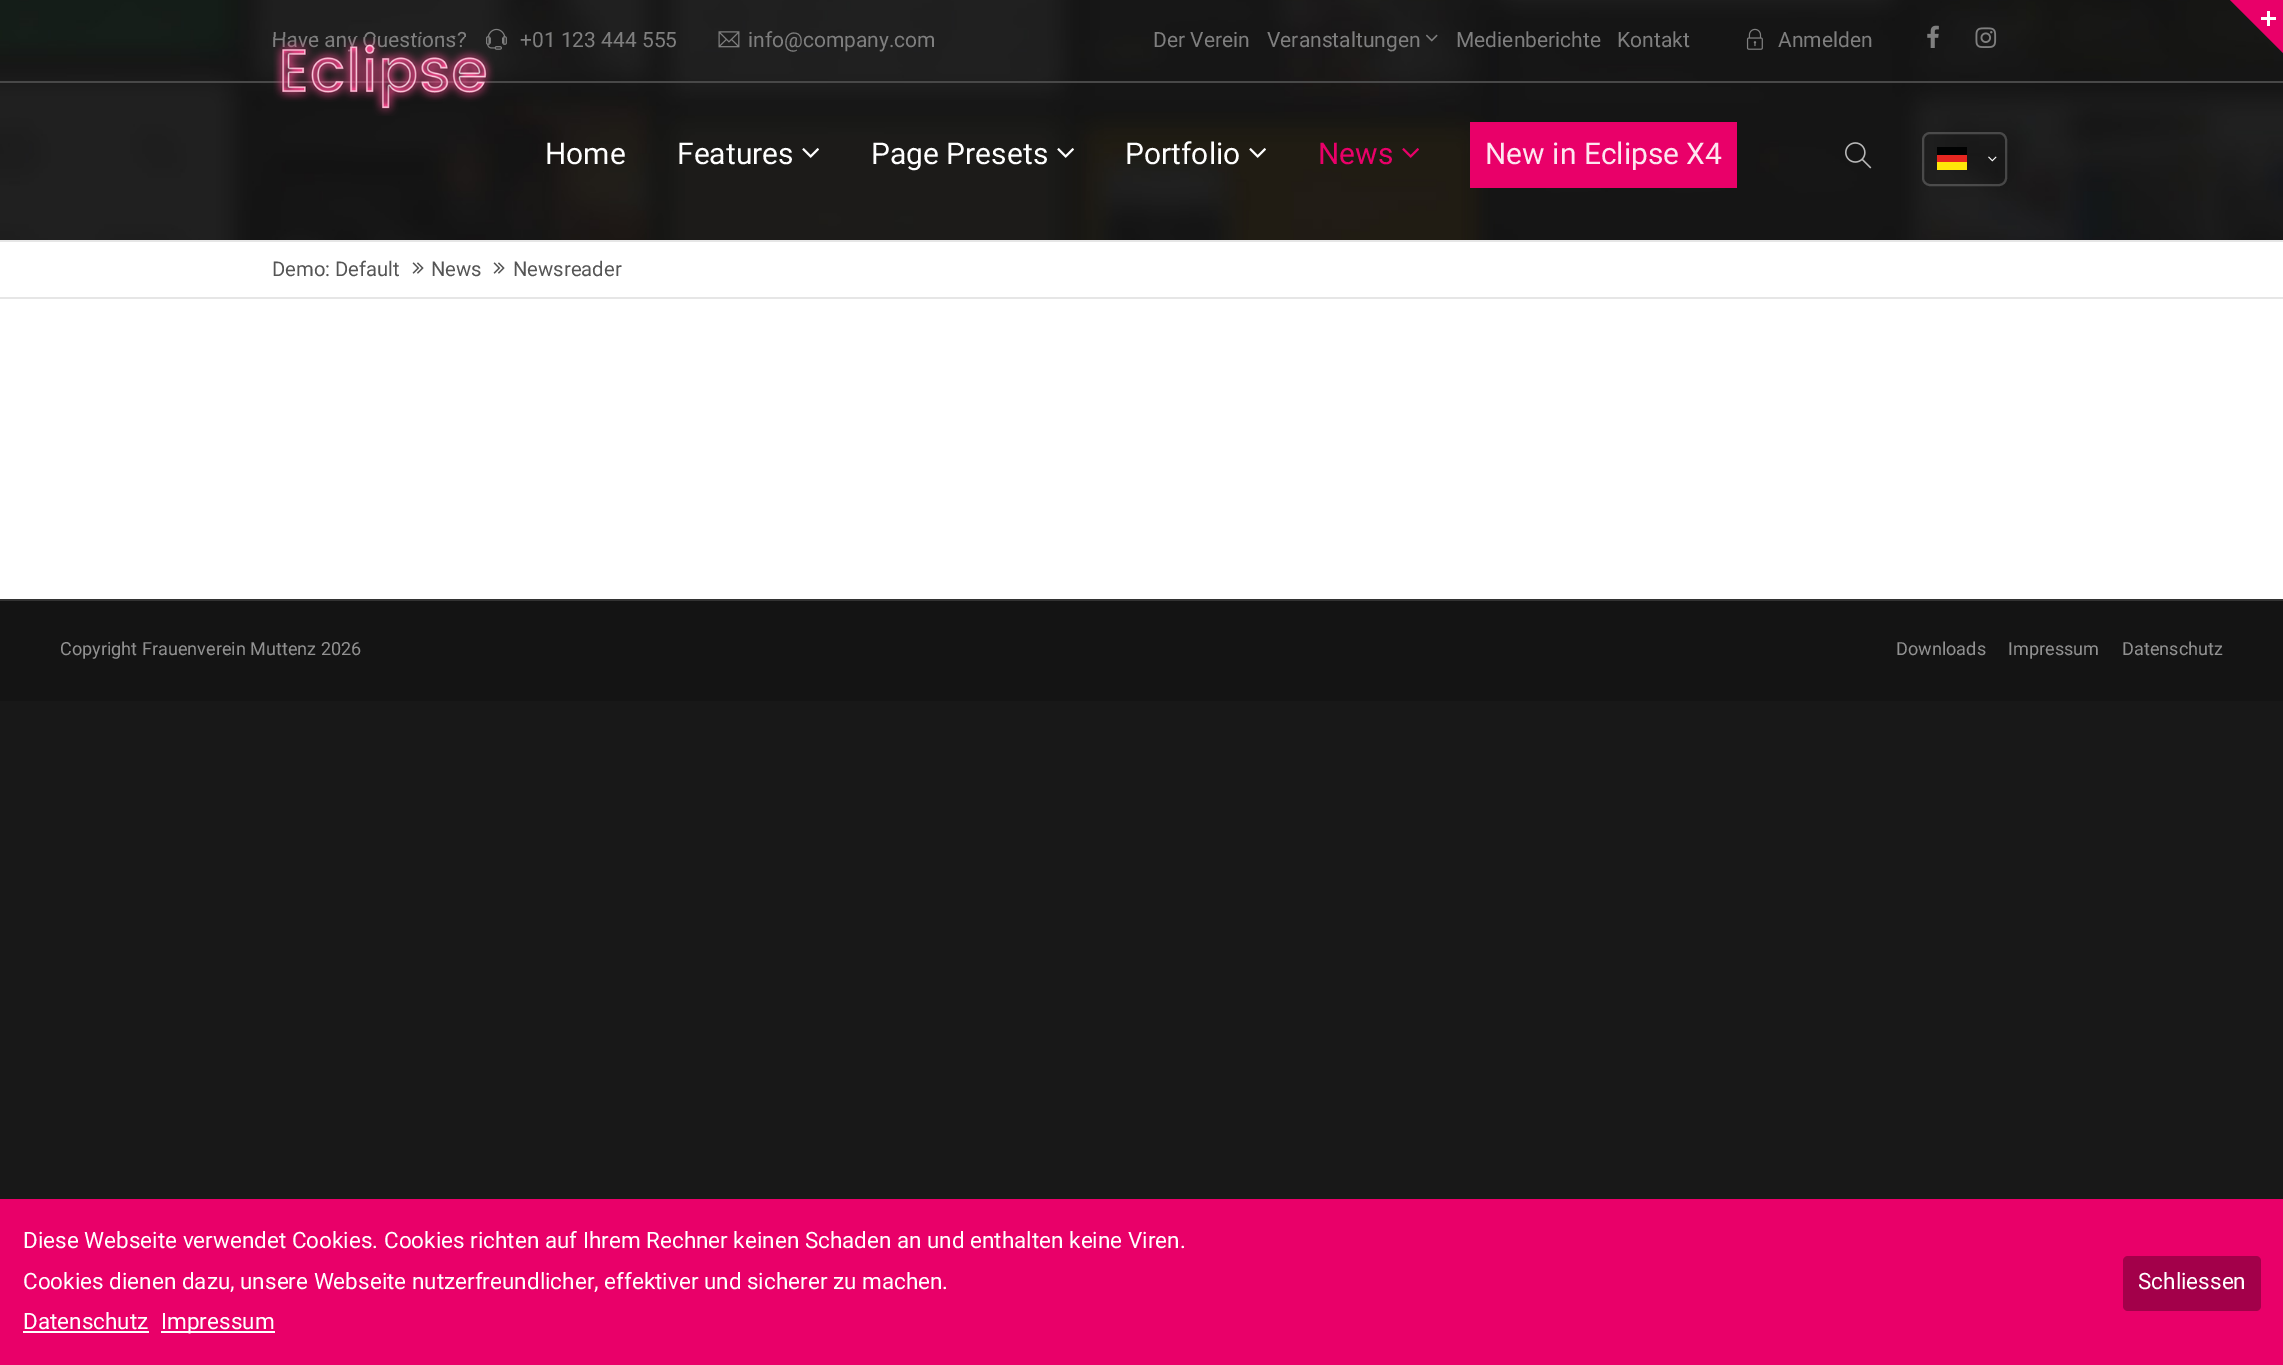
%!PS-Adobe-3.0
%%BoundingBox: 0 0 2283 1365
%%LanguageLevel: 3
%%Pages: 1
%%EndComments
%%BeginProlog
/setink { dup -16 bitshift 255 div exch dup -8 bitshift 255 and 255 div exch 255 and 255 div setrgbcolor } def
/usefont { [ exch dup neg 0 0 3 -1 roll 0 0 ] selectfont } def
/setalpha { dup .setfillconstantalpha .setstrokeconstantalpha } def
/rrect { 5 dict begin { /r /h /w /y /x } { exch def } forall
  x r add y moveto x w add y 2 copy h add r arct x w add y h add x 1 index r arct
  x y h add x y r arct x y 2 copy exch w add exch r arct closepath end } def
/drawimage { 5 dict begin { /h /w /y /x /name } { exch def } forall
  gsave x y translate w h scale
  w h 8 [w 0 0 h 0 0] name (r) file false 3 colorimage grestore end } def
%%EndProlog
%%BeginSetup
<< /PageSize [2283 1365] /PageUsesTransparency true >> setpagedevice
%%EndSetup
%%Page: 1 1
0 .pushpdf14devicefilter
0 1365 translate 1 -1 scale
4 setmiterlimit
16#181818 setink
0 0 2283 1365 rectfill
16#FFFFFF setink
0 242 2283 357 rectfill
(img1.raw) 0 0 2283 240 drawimage
16#484848 setink
0 81 2283 2 rectfill
/Roboto-Regular 21 usefont
16#7F7F7F setink
272 47 moveto (Have any Questions?) show
(img2.raw) 486 28 21 22 drawimage
520 47 moveto (+01 123 444 555) show
(img3.raw) 718 31 22 17 drawimage
[
    [(info@company.com) 748 47]
    [(Der Verein) 1153 47]
    [(Veranstaltungen) 1267 47]
] { aload pop moveto show } forall
(img4.raw) 1426 34 12 8 drawimage
1456 47 moveto (Medienberichte) show
1617 47 moveto (Kontakt) show
(img5.raw) 1746 28 17 22 drawimage
1778 47 moveto (Anmelden) show
(img6.raw) 1927 25 12 23 drawimage
(img7.raw) 1975 27 22 21 drawimage
16#E90069 setink
2283 -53 moveto 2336 0 lineto 2283 53 lineto 2230 0 lineto closepath fill
16#FFFFFF setink
2261 17 15 3 rectfill
2267 11 3 15 rectfill
(img8.raw) 273 37 222 79 drawimage
/Roboto-Regular 30 usefont
545 164 moveto (Home) show
677 164 moveto (Features) show
(img9.raw) 802 148 17 10 drawimage
871 164 moveto (Page Presets) show
(img10.raw) 1057 148 17 10 drawimage
1125 164 moveto (Portfolio) show
(img11.raw) 1249 148 17 10 drawimage
16#E90069 setink
1318 164 moveto (News) show
(img12.raw) 1402 148 17 10 drawimage
1470 122 267 66 rectfill
16#FDE6F0 setink
1485 164 moveto (New in Eclipse X4) show
(img13.raw) 1845 142 27 27 drawimage
[
    [1937 147 30 8 16#010202]
    [1937 155 30 7 16#E52620]
    [1937 162 30 8 16#FFE609]
] { aload pop setink rectfill } forall
0.2 setalpha
16#FFFFFF setink
2 setlinewidth
1923 133 83 52 7 rrect stroke
1 setalpha
(img14.raw) 1988 156 9 6 drawimage
16#E6E6E6 setink
0 240 2283 2 rectfill
0 297 2283 2 rectfill
/Roboto-Regular 20.25 usefont
16#555555 setink
272 276 moveto (Demo: Default) show
(img15.raw) 412 262 12 12 drawimage
431 276 moveto (News) show
(img15.raw) 493 262 12 12 drawimage
513 276 moveto (Newsreader) show
16#141414 setink
0 601 2283 100 rectfill
16#333333 setink
0 599 2283 2 rectfill
/Roboto-Regular 18.1 usefont
16#919191 setink
[
    [(Copyright Frauenverein Muttenz 2026) 60 655]
    [(Downloads) 1896 655]
    [(Impressum) 2008 655]
    [(Datenschutz) 2122 655]
] { aload pop moveto show } forall
16#E90069 setink
0 1199 2283 166 rectfill
/Roboto-Regular 22.5 usefont
16#FFFFFF setink
[
    [(Diese Webseite verwendet Cookies. Cookies richten auf Ihrem Rechner keinen Schaden an und enthalten keine Viren.) 23 1248]
    [(Cookies dienen dazu, unsere Webseite nutzerfreundlicher, effektiver und sicherer zu machen.) 23 1289]
    [(Datenschutz) 23 1329]
] { aload pop moveto show } forall
23 1331 126 2 rectfill
161 1331 114 2 rectfill
161 1329 moveto (Impressum) show
16#A3004A setink
2123 1256 138 55 5 rrect fill
16#FFFFFF setink
2138 1289 moveto (Schliessen) show
.poppdf14devicefilter showpage
%%EOF
